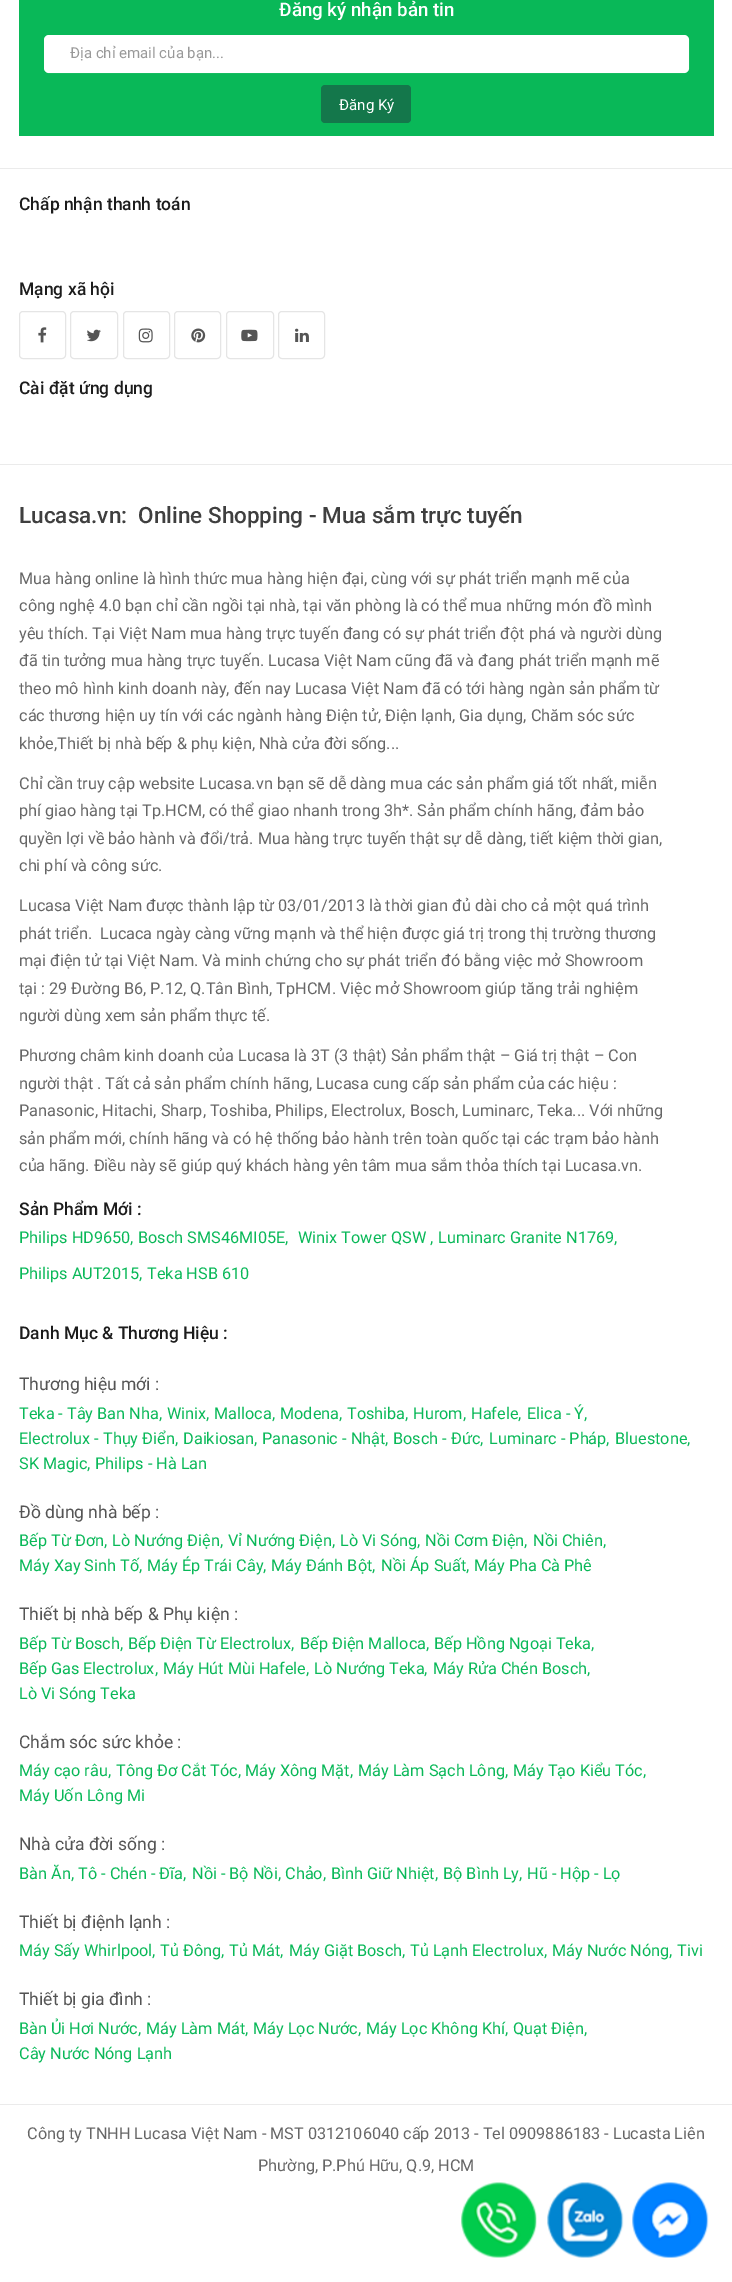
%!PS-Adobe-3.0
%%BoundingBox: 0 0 732 2282
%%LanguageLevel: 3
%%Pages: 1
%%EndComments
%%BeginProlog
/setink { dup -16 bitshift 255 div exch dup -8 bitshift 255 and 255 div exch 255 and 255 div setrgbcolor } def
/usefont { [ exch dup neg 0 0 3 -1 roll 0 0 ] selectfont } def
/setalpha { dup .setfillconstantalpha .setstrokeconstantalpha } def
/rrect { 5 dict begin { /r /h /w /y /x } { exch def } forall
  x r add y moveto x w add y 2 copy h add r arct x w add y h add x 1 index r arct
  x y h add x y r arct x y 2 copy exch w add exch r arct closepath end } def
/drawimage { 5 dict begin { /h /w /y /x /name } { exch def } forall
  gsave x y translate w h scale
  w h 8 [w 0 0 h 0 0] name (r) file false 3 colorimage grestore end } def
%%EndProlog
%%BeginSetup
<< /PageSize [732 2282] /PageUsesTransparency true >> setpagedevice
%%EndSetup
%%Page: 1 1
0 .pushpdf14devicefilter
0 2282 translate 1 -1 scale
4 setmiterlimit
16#FFFFFF setink
0 0 732 2282 rectfill
16#09B858 setink
19 0 695 136 rectfill
/Roboto-Medium 18.75 usefont
16#FFFFFF setink
279 16 moveto (Đăng ký nhận bản tin) show
44 35 645 38 5 rrect fill
0.2 setalpha
44.5 35.5 644 37 4.5 rrect stroke
/Roboto-Regular 15 usefont
1 setalpha
16#999999 setink
70 58 moveto (Địa chỉ email của bạn...) show
16#14774B setink
321 85 90 38 4 rrect fill
16#FFFFFF setink
339 110 moveto (Đăng Ký) show
16#EBEBEB setink
0 168 732 1 rectfill
/Roboto-Medium 17.5 usefont
16#1C1C1C setink
19 210 moveto (Chấp nhận thanh toán) show
19 295 moveto (Mạng xã hội) show
16#E5E5E5 setink
19.5 311.5 46 47 3.5 rrect stroke
(img1.raw) 38 327 9 16 drawimage
70.5 311.5 47 47 3.5 rrect stroke
(img2.raw) 87 329 14 13 drawimage
123.5 311.5 46 47 3.5 rrect stroke
(img3.raw) 138 328 15 15 drawimage
174.5 311.5 46 47 3.5 rrect stroke
(img4.raw) 191 328 15 15 drawimage
226.5 311.5 47 47 3.5 rrect stroke
(img5.raw) 241 329 17 13 drawimage
278.5 311.5 46 47 3.5 rrect stroke
(img6.raw) 295 328 14 14 drawimage
16#1C1C1C setink
19 394 moveto (Cài đặt ứng dụng) show
16#EBEBEB setink
0 464 732 1 rectfill
/Roboto-Medium 22.5 usefont
16#3F3F3F setink
19 523 moveto (Lucasa.vn:  Online Shopping - Mua sắm trực tuyến) show
/Roboto-Regular 16.25 usefont
16#666666 setink
[
    [(Mua hàng online là hình thức mua hàng hiện đại, cùng với sự phát triển mạnh mẽ của) 19 584]
    [(công nghệ 4.0 bạn chỉ cần ngồi tại nhà, tại văn phòng là có thể mua những món đồ mình) 19 611]
    [(yêu thích. Tại Việt Nam mua hàng trực tuyến đang có sự phát triển đột phá và người dùng) 19 639]
    [(đã tin tưởng mua hàng trực tuyến. Lucasa Việt Nam cũng đã và đang phát triển mạnh mẽ) 19 666]
    [(theo mô hình kinh doanh này, đến nay Lucasa Việt Nam đã có tới hàng ngàn sản phẩm từ) 19 694]
    [(các thương hiện uy tín với các ngành hàng Điện tử, Điện lạnh, Gia dụng, Chăm sóc sức) 19 721]
    [(khỏe,Thiết bị nhà bếp & phụ kiện, Nhà cửa đời sống...) 19 749]
    [(Chỉ cần truy cập website Lucasa.vn bạn sẽ dễ dàng mua các sản phẩm giá tốt nhất, miễn) 19 789]
    [(phí giao hàng tại Tp.HCM, có thể giao nhanh trong 3h*. Sản phẩm chính hãng, đảm bảo) 19 816]
    [(quyền lợi về bảo hành và đổi/trả. Mua hàng trực tuyến thật sự dễ dàng, tiết kiệm thời gian,) 19 844]
    [(chi phí và công sức.) 19 871]
    [(Lucasa Việt Nam được thành lập từ 03/01/2013 là thời gian đủ dài cho cả một quá trình) 19 911]
    [(phát triển.  Lucaca ngày càng vững mạnh và thể hiện được giá trị trong thị trường thương) 19 939]
    [(mại điện tử tại Việt Nam. Và minh chứng cho sự phát triển đó bằng việc mở Showroom) 19 966]
    [(tại : 29 Đường B6, P.12, Q.Tân Bình, TpHCM. Việc mở Showroom giúp tăng trải nghiệm) 19 994]
    [(người dùng xem sản phẩm thực tế.) 19 1021]
    [(Phương châm kinh doanh của Lucasa là 3T \(3 thật\) Sản phẩm thật – Giá trị thật – Con) 19 1061]
    [(người thật . Tất cả sản phẩm chính hãng, Lucasa cung cấp sản phẩm của các hiệu :) 19 1089]
    [(Panasonic, Hitachi, Sharp, Toshiba, Philips, Electrolux, Bosch, Luminarc, Teka... Với những) 19 1116]
    [(sản phẩm mới, chính hãng và có hệ thống bảo hành trên toàn quốc tại các trạm bảo hành) 19 1144]
    [(của hãng. Điều này sẽ giúp quý khách hàng yên tâm mua sắm thỏa thích tại Lucasa.vn.) 19 1171]
] { aload pop moveto show } forall
/Roboto-Medium 17.5 usefont
16#1C1C1C setink
19 1215 moveto (Sản Phẩm Mới :) show
/Roboto-Regular 16.25 usefont
16#09B858 setink
[
    [(Philips HD9650,) 19 1243]
    [(Bosch SMS46MI05E,) 138 1243]
    [(Winix Tower QSW ,) 298 1243]
    [(Luminarc Granite N1769,) 438 1243]
    [(Philips AUT2015,) 19 1279]
    [(Teka HSB 610) 147 1279]
] { aload pop moveto show } forall
/Roboto-Medium 17.5 usefont
16#1C1C1C setink
19 1339 moveto (Danh Mục & Thương Hiệu :) show
/Roboto-Regular 17.5 usefont
16#545454 setink
19 1390 moveto (Thương hiệu mới :) show
/Roboto-Regular 16.25 usefont
16#09B858 setink
[
    [(Teka - Tây Ban Nha,) 19 1419]
    [(Winix,) 167 1419]
    [(Malloca,) 214 1419]
    [(Modena,) 280 1419]
    [(Toshiba,) 347 1419]
    [(Hurom,) 413 1419]
    [(Hafele,) 471 1419]
    [(Elica - Ý,) 527 1419]
    [(Electrolux - Thụy Điển,) 19 1444]
    [(Daikiosan,) 183 1444]
    [(Panasonic - Nhật,) 262 1444]
    [(Bosch - Đức,) 393 1444]
    [(Luminarc - Pháp,) 489 1444]
    [(Bluestone,) 615 1444]
    [(SK Magic,) 19 1469]
    [(Philips - Hà Lan) 95 1469]
] { aload pop moveto show } forall
/Roboto-Regular 17.5 usefont
16#545454 setink
19 1518 moveto (Đồ dùng nhà bếp :) show
/Roboto-Regular 16.25 usefont
16#09B858 setink
[
    [(Bếp Từ Đơn,) 19 1546]
    [(Lò Nướng Điện,) 112 1546]
    [(Vỉ Nướng Điện,) 228 1546]
    [(Lò Vi Sóng,) 340 1546]
    [(Nồi Cơm Điện,) 425 1546]
    [(Nồi Chiên,) 533 1546]
    [(Máy Xay Sinh Tố,) 19 1571]
    [(Máy Ép Trái Cây,) 147 1571]
    [(Máy Đánh Bột,) 271 1571]
    [(Nồi Áp Suất,) 381 1571]
    [(Máy Pha Cà Phê) 474 1571]
] { aload pop moveto show } forall
/Roboto-Regular 17.5 usefont
16#545454 setink
19 1620 moveto (Thiết bị nhà bếp & Phụ kiện :) show
/Roboto-Regular 16.25 usefont
16#09B858 setink
[
    [(Bếp Từ Bosch,) 19 1649]
    [(Bếp Điện Từ Electrolux,) 128 1649]
    [(Bếp Điện Malloca,) 300 1649]
    [(Bếp Hồng Ngoại Teka,) 434 1649]
    [(Bếp Gas Electrolux,) 19 1674]
    [(Máy Hút Mùi Hafele,) 163 1674]
    [(Lò Nướng Teka,) 314 1674]
    [(Máy Rửa Chén Bosch,) 433 1674]
    [(Lò Vi Sóng Teka) 19 1699]
] { aload pop moveto show } forall
/Roboto-Regular 17.5 usefont
16#545454 setink
19 1748 moveto (Chắm sóc sức khỏe :) show
/Roboto-Regular 16.25 usefont
16#09B858 setink
[
    [(Máy cạo râu,) 19 1776]
    [(Tông Đơ Cắt Tóc,) 116 1776]
    [(Máy Xông Mặt,) 245 1776]
    [(Máy Làm Sạch Lông,) 358 1776]
    [(Máy Tạo Kiểu Tóc,) 513 1776]
    [(Máy Uốn Lông Mi) 19 1801]
] { aload pop moveto show } forall
/Roboto-Regular 17.5 usefont
16#545454 setink
19 1850 moveto (Nhà cửa đời sống :) show
/Roboto-Regular 16.25 usefont
16#09B858 setink
[
    [(Bàn Ăn,) 19 1879]
    [(Tô - Chén - Đĩa,) 78 1879]
    [(Nồi - Bộ Nồi,) 192 1879]
    [(Chảo,) 285 1879]
    [(Bình Giữ Nhiệt,) 331 1879]
    [(Bộ Bình Ly,) 443 1879]
    [(Hũ - Hộp - Lọ) 527 1879]
] { aload pop moveto show } forall
/Roboto-Regular 17.5 usefont
16#545454 setink
19 1928 moveto (Thiết bị điệnh lạnh :) show
/Roboto-Regular 16.25 usefont
16#09B858 setink
[
    [(Máy Sấy Whirlpool,) 19 1956]
    [(Tủ Đông,) 160 1956]
    [(Tủ Mát,) 229 1956]
    [(Máy Giặt Bosch,) 289 1956]
    [(Tủ Lạnh Electrolux,) 410 1956]
    [(Máy Nước Nóng,) 552 1956]
    [(Tivi) 677 1956]
] { aload pop moveto show } forall
/Roboto-Regular 17.5 usefont
16#545454 setink
19 2005 moveto (Thiết bị gia đình :) show
/Roboto-Regular 16.25 usefont
16#09B858 setink
[
    [(Bàn Ủi Hơi Nước,) 19 2034]
    [(Máy Làm Mát,) 146 2034]
    [(Máy Lọc Nước,) 253 2034]
    [(Máy Lọc Không Khí,) 366 2034]
    [(Quạt Điện,) 513 2034]
    [(Cây Nước Nóng Lạnh) 19 2059]
] { aload pop moveto show } forall
16#EBEBEB setink
0 2104 732 1 rectfill
16#666666 setink
27 2139 moveto (Công ty TNHH Lucasa Việt Nam - MST 0312106040 cấp 2013 - Tel 0909886183 - Lucasta Liên) show
258 2171 moveto (Phường, P.Phú Hữu, Q.9, HCM) show
(img7.raw) 461 2182 76 76 drawimage
(img8.raw) 547 2182 77 76 drawimage
(img9.raw) 632 2182 77 76 drawimage
.poppdf14devicefilter showpage
%%EOF
